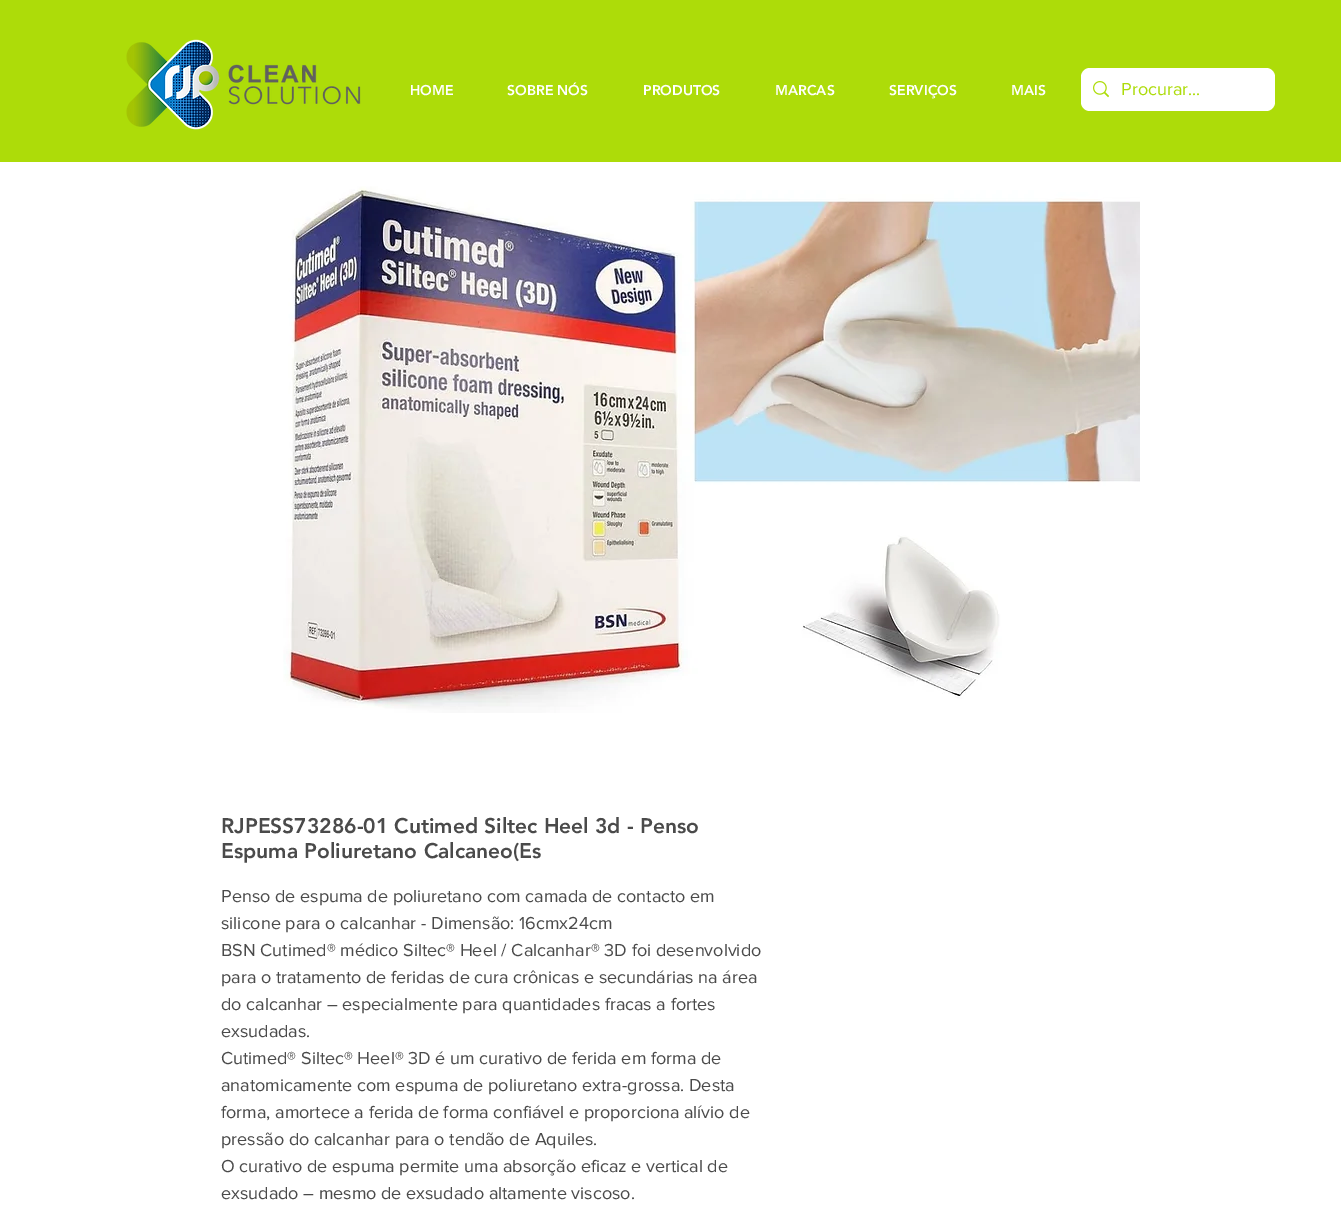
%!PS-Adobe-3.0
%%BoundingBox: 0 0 1341 1222
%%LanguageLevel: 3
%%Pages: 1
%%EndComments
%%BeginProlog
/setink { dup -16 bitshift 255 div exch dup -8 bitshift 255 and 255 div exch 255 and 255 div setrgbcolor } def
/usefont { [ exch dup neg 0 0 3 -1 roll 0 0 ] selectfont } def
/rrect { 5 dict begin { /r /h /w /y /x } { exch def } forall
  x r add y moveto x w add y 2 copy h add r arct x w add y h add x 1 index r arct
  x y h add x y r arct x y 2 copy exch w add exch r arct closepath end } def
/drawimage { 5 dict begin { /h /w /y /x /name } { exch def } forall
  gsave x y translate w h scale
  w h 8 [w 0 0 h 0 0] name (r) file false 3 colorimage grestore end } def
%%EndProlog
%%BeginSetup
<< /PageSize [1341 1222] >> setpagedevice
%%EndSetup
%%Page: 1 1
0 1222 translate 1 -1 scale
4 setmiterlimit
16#FFFFFF setink
0 0 1341 1222 rectfill
16#ADDC09 setink
0 0 1341 162 rectfill
(img1.raw) 126 39 235 91 drawimage
/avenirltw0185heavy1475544-Black 14 usefont
16#FFFFFF setink
[
    [(HOME) 410 95]
    [(SOBRE NÓS) 507 95]
    [(PRODUTOS) 643 95]
    [(MARCAS) 775 95]
    [(SERVIÇOS) 889 95]
    [(MAIS) 1011 95]
] { aload pop moveto show } forall
1081 68 194 43 9 rrect fill
(img2.raw) 1093 81 16 17 drawimage
/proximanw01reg-Regular 18 usefont
16#ADDC09 setink
1121 95 moveto (Procurar...) show
(img3.raw) 283 186 857 527 drawimage
/avenirltw0185heavy1475544-Black 21 usefont
16#4A4A4A setink
221 833 moveto (RJPESS73286-01 Cutimed Siltec Heel 3d - Penso) show
221 858 moveto (Espuma Poliuretano Calcaneo\(Es) show
/proximanw01reg-Regular 18 usefont
[
    [(Penso de espuma de poliuretano com camada de contacto em) 221 902]
    [(silicone para o calcanhar - Dimensão: 16cmx24cm) 221 929]
    [(BSN Cutimed® médico Siltec® Heel / Calcanhar® 3D foi desenvolvido) 221 956]
    [(para o tratamento de feridas de cura crônicas e secundárias na área) 221 983]
    [(do calcanhar – especialmente para quantidades fracas a fortes) 221 1010]
    [(exsudadas.) 221 1037]
    [(Cutimed® Siltec® Heel® 3D é um curativo de ferida em forma de) 221 1064]
    [(anatomicamente com espuma de poliuretano extra-grossa. Desta) 221 1091]
    [(forma, amortece a ferida de forma confiável e proporciona alívio de) 221 1118]
    [(pressão do calcanhar para o tendão de Aquiles.) 221 1145]
    [(O curativo de espuma permite uma absorção eficaz e vertical de) 221 1172]
    [(exsudado – mesmo de exsudado altamente viscoso.) 221 1199]
] { aload pop moveto show } forall
showpage
%%EOF
